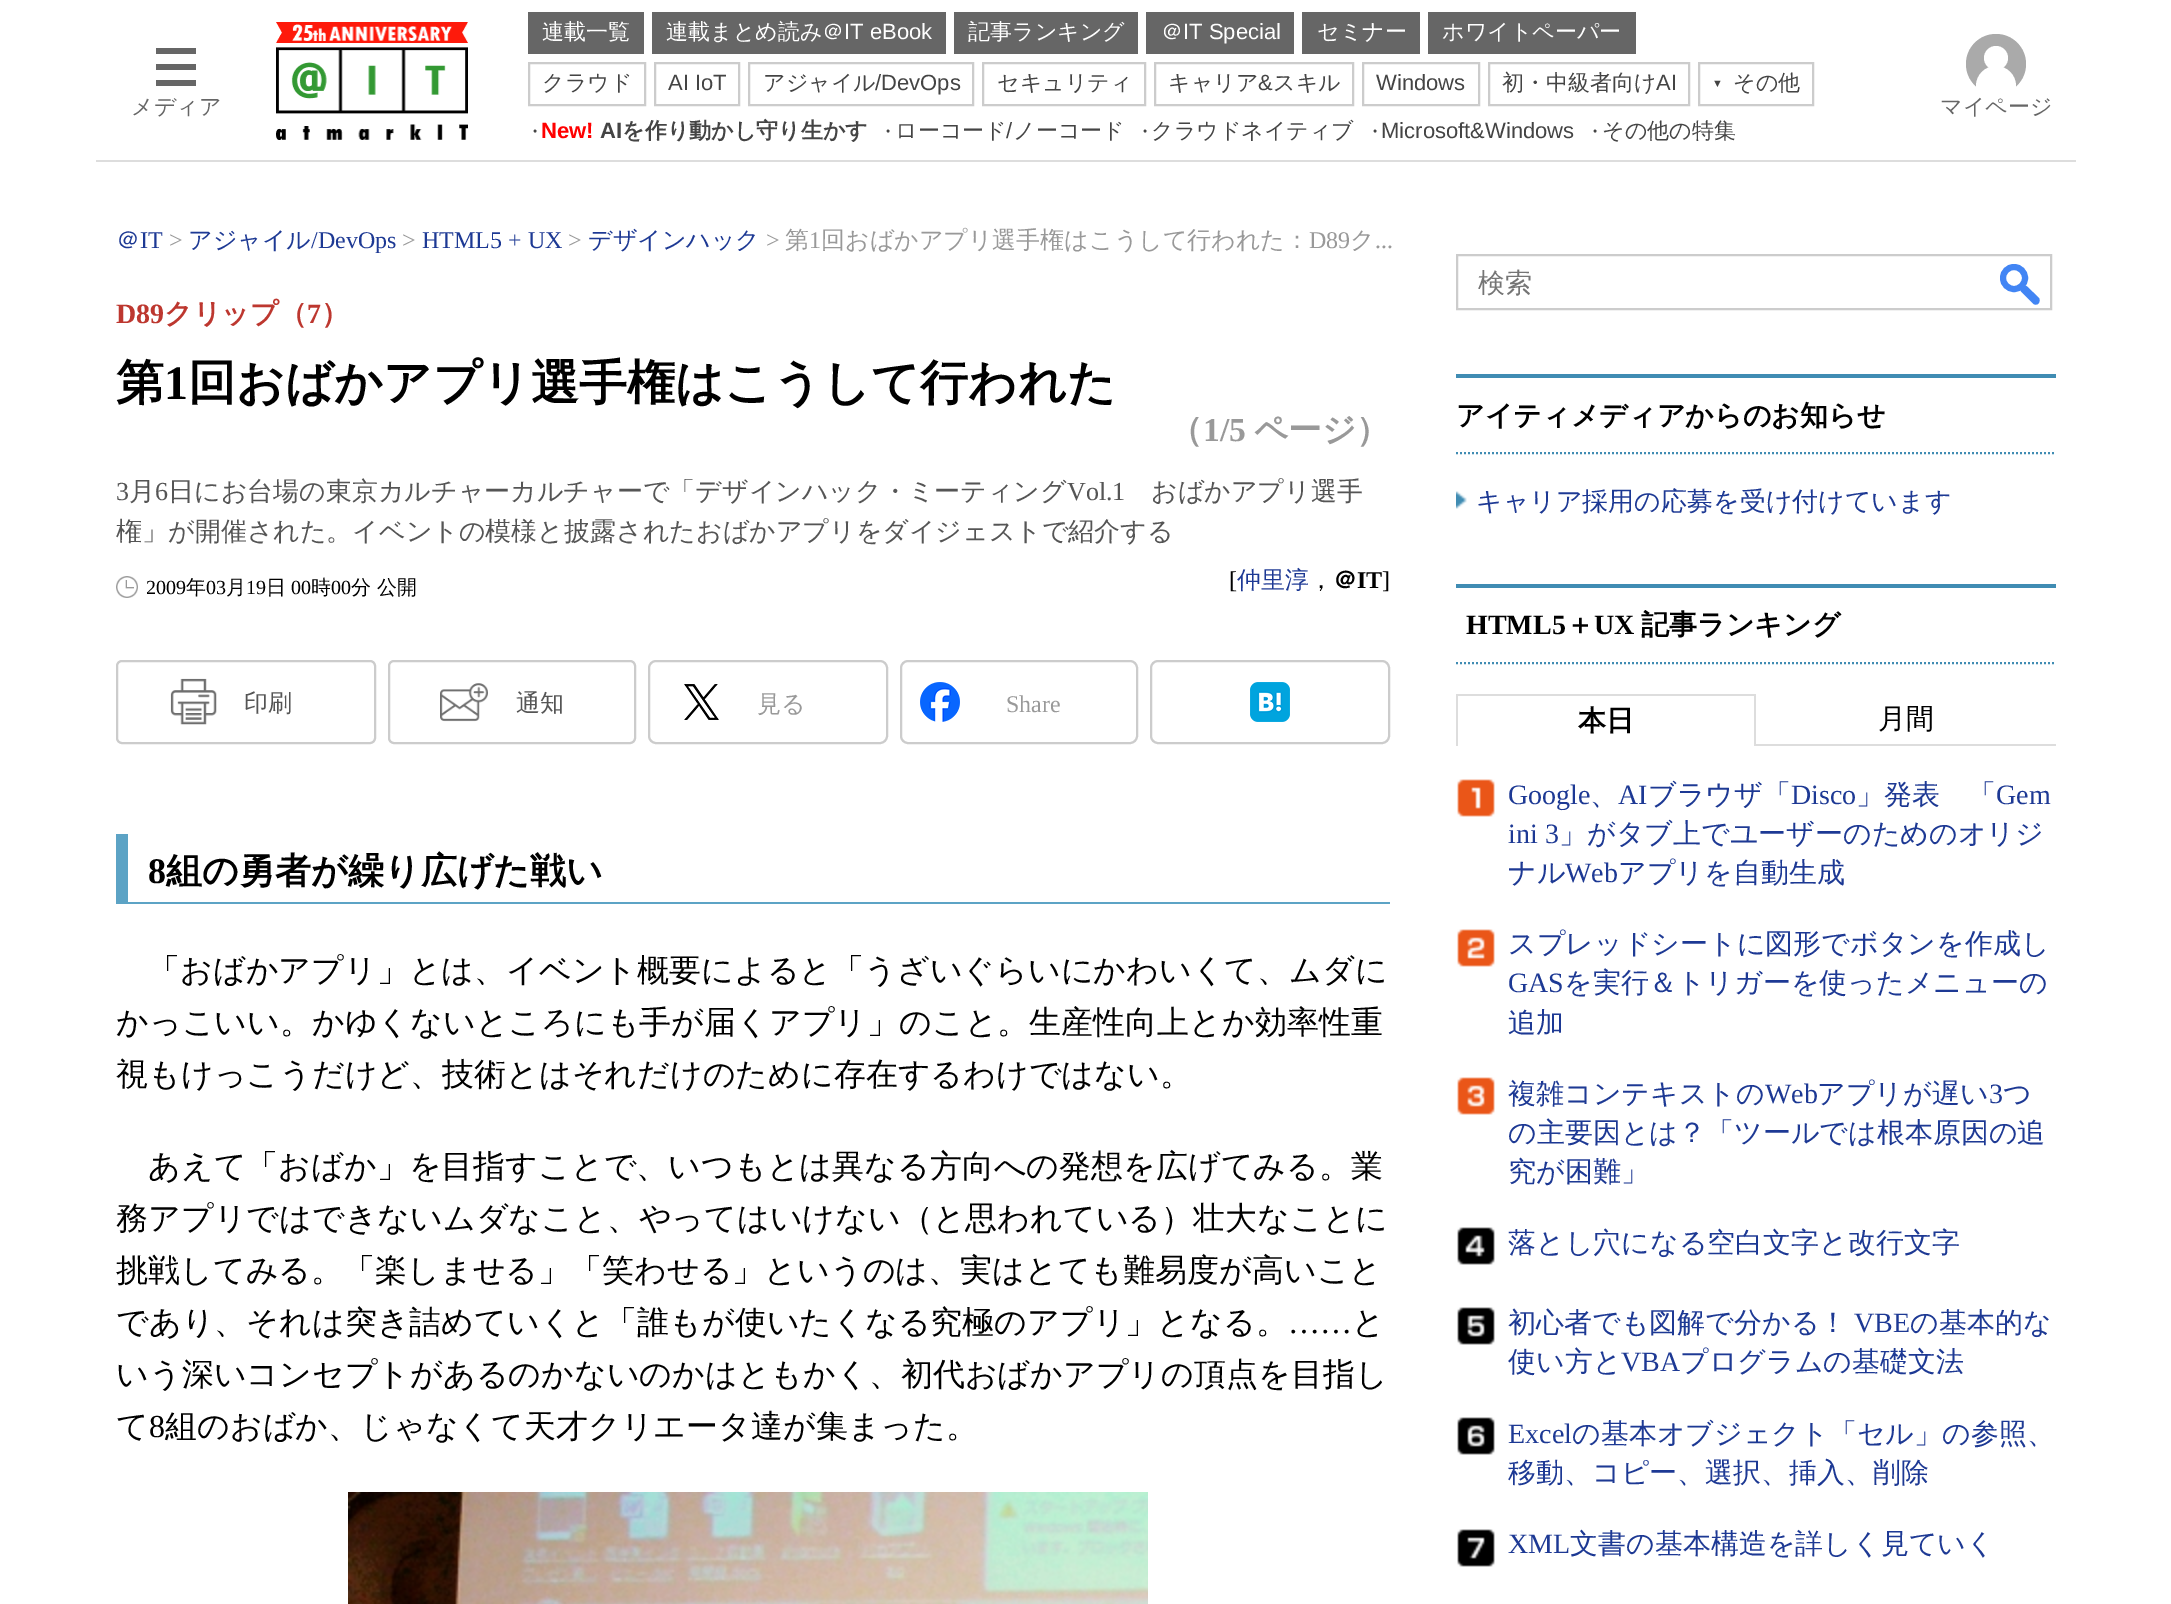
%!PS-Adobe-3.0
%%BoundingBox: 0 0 2171 1604
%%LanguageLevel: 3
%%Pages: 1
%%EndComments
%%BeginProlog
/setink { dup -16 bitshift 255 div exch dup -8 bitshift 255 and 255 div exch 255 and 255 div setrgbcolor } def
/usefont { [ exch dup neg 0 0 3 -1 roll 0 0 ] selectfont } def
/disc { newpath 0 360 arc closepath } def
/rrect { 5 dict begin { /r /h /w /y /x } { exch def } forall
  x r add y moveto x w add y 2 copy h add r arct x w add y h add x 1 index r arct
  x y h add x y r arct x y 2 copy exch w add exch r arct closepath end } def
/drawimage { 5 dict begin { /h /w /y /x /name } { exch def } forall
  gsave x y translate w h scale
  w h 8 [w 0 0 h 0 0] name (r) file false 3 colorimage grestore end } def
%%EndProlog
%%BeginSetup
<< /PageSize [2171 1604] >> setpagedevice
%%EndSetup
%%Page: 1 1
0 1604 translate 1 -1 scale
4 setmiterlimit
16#FFFFFF setink
0 0 2171 1604 rectfill
[
    [96 160 1980 2 16#DDDDDD]
    [156 48 40 6 16#666666]
    [156 64 40 6 16#666666]
    [156 80 40 6 16#666666]
] { aload pop setink rectfill } forall
/WenQuanYiZenHei-Medium 22 usefont
131 114 moveto (メディア) show
(img1.raw) 276 22 192 118 drawimage
528 12 116 42 rectfill
16#FFFFFF setink
542 39 moveto (連載一覧) show
16#666666 setink
652 12 294 42 rectfill
16#FFFFFF setink
666 39 moveto (連載まとめ読み＠) show
/LiberationSans-Regular 22 usefont
844 39 moveto (IT eBook) show
16#666666 setink
954 12 184 42 rectfill
/WenQuanYiZenHei-Medium 22 usefont
16#FFFFFF setink
968 39 moveto (記事ランキング) show
16#666666 setink
1146 12 148 42 rectfill
16#FFFFFF setink
1161 39 moveto (＠) show
/LiberationSans-Regular 22 usefont
1183 39 moveto (IT Special) show
16#666666 setink
1302 12 118 42 rectfill
/WenQuanYiZenHei-Medium 22 usefont
16#FFFFFF setink
1317 39 moveto (セミナー) show
16#666666 setink
1428 12 208 42 rectfill
16#FFFFFF setink
1442 39 moveto (ホワイトペーパー) show
16#CCCCCC setink
2 setlinewidth
529 63 116 42 rectstroke
16#444444 setink
542 90 moveto (クラウド) show
16#CCCCCC setink
655 63 84 42 rectstroke
/LiberationSans-Regular 22 usefont
16#444444 setink
668 90 moveto (AI IoT) show
16#CCCCCC setink
749 63 224 42 rectstroke
/WenQuanYiZenHei-Medium 22 usefont
16#444444 setink
763 90 moveto (アジャイル) show
/LiberationSans-Regular 22 usefont
875 90 moveto (/DevOps) show
16#CCCCCC setink
983 63 162 42 rectstroke
/WenQuanYiZenHei-Medium 22 usefont
16#444444 setink
997 90 moveto (セキュリティ) show
16#CCCCCC setink
1155 63 198 42 rectstroke
16#444444 setink
1168 90 moveto (キャリア) show
/LiberationSans-Regular 22 usefont
1258 90 moveto (&) show
/WenQuanYiZenHei-Medium 22 usefont
1273 90 moveto (スキル) show
16#CCCCCC setink
1363 63 116 42 rectstroke
/LiberationSans-Regular 22 usefont
16#444444 setink
1376 90 moveto (Windows) show
16#CCCCCC setink
1489 63 200 42 rectstroke
/WenQuanYiZenHei-Medium 22 usefont
16#444444 setink
1502 90 moveto (初・中級者向け) show
/LiberationSans-Regular 22 usefont
1656 90 moveto (AI) show
16#CCCCCC setink
1699 63 114 42 rectstroke
/LiberationSans-Regular 11 usefont
16#444444 setink
1712 87 moveto (▼) show
/WenQuanYiZenHei-Medium 22 usefont
1733 90 moveto (その他) show
/LiberationSans-Regular 7 usefont
533 133 moveto (●) show
/LiberationSans-Bold 22 usefont
16#FF0000 setink
541 138 moveto (New!) show
16#444444 setink
600 138 moveto (AI) show
/WenQuanYiZenHei-Bold 22 usefont
622 138 moveto (を作り動かし守り生かす) show
/LiberationSans-Regular 7 usefont
886 133 moveto (●) show
/WenQuanYiZenHei-Medium 22 usefont
895 138 moveto (ローコード) show
/LiberationSans-Regular 22 usefont
1006 138 moveto (/) show
/WenQuanYiZenHei-Medium 22 usefont
1013 138 moveto (ノーコード) show
/LiberationSans-Regular 7 usefont
1143 133 moveto (●) show
/WenQuanYiZenHei-Medium 22 usefont
1151 138 moveto (クラウドネイティブ) show
/LiberationSans-Regular 7 usefont
1373 133 moveto (●) show
/LiberationSans-Regular 22 usefont
1381 138 moveto (Microsoft&Windows) show
/LiberationSans-Regular 7 usefont
1593 133 moveto (●) show
/WenQuanYiZenHei-Medium 22 usefont
1602 138 moveto (その他の特集) show
16#AAAAAA setink
1996 64 30 disc fill
16#FFFFFF setink
1996 66 moveto 2007 66 2016 75 2016 86 curveto 2016 94 lineto 1976 94 lineto 1976 86 lineto 1976 75 1985 66 1996 66 curveto closepath fill
1996 58 12 disc fill
16#666666 setink
1940 114 moveto (マイページ) show
/WenQuanYiZenHei-Medium 24 usefont
16#1D3994 setink
116 248 moveto (＠) show
/LiberationSerif-Regular 24 usefont
140 248 moveto (IT) show
16#999999 setink
169 248 moveto (>) show
/WenQuanYiZenHei-Medium 24 usefont
16#1D3994 setink
188 248 moveto (アジャイル) show
/LiberationSerif-Regular 24 usefont
311 248 moveto (/DevOps) show
16#999999 setink
402 248 moveto (>) show
16#1D3994 setink
422 248 moveto (HTML5 + UX) show
16#999999 setink
568 248 moveto (>) show
/WenQuanYiZenHei-Medium 24 usefont
16#1D3994 setink
588 248 moveto (デザインハック) show
/LiberationSerif-Regular 24 usefont
16#999999 setink
766 248 moveto (>) show
/WenQuanYiZenHei-Medium 24 usefont
785 248 moveto (第) show
/LiberationSerif-Regular 24 usefont
809 248 moveto (1) show
/WenQuanYiZenHei-Medium 24 usefont
821 248 moveto (回おばかアプリ選手権はこうして行われた：) show
/LiberationSerif-Regular 24 usefont
1309 248 moveto (D89) show
/WenQuanYiZenHei-Medium 24 usefont
1350 248 moveto (ク) show
/LiberationSerif-Regular 24 usefont
1375 248 moveto (...) show
/LiberationSerif-Bold 28 usefont
16#BD372F setink
116 323 moveto (D89) show
/WenQuanYiZenHei-Bold 28 usefont
164 323 moveto (クリップ（) show
/LiberationSerif-Bold 28 usefont
307 323 moveto (7) show
/WenQuanYiZenHei-Bold 28 usefont
321 323 moveto (）) show
/WenQuanYiZenHei-Bold 48 usefont
16#000000 setink
116 399 moveto (第) show
/LiberationSerif-Bold 48 usefont
164 399 moveto (1) show
/WenQuanYiZenHei-Bold 48 usefont
188 399 moveto (回おばかアプリ選手権はこうして行われた) show
/WenQuanYiZenHei-Bold 33.5 usefont
16#999999 setink
1169 441 moveto (（) show
/LiberationSerif-Bold 33.5 usefont
1203 441 moveto (1/5) show
/WenQuanYiZenHei-Bold 33.5 usefont
1254 441 moveto (ページ）) show
/LiberationSerif-Regular 26 usefont
16#555555 setink
116 500 moveto (3) show
/WenQuanYiZenHei-Medium 26 usefont
129 500 moveto (月) show
/LiberationSerif-Regular 26 usefont
155 500 moveto (6) show
/WenQuanYiZenHei-Medium 26 usefont
168 500 moveto (日にお台場の東京カルチャーカルチャーで「デザインハック・ミーティング) show
/LiberationSerif-Regular 26 usefont
1067 500 moveto (Vol.1) show
/WenQuanYiZenHei-Medium 26 usefont
1151 500 moveto (おばかアプリ選手) show
116 540 moveto (権」が開催された。イベントの模様と披露されたおばかアプリをダイジェストで紹介する) show
(img2.raw) 116 576 22 22 drawimage
/LiberationSerif-Regular 20 usefont
16#000000 setink
146 594 moveto (2009) show
/WenQuanYiZenHei-Medium 20 usefont
186 594 moveto (年) show
/LiberationSerif-Regular 20 usefont
206 594 moveto (03) show
/WenQuanYiZenHei-Medium 20 usefont
226 594 moveto (月) show
/LiberationSerif-Regular 20 usefont
246 594 moveto (19) show
/WenQuanYiZenHei-Medium 20 usefont
266 594 moveto (日) show
/LiberationSerif-Regular 20 usefont
291 594 moveto (00) show
/WenQuanYiZenHei-Medium 20 usefont
311 594 moveto (時) show
/LiberationSerif-Regular 20 usefont
331 594 moveto (00) show
/WenQuanYiZenHei-Medium 20 usefont
351 594 moveto (分 公開) show
/LiberationSerif-Regular 24 usefont
1229 588 moveto ([) show
/WenQuanYiZenHei-Medium 24 usefont
16#1D3994 setink
1237 588 moveto (仲里淳) show
16#000000 setink
1309 588 moveto (，) show
/WenQuanYiZenHei-Bold 24 usefont
1333 588 moveto (＠) show
/LiberationSerif-Bold 24 usefont
1357 588 moveto (IT) show
/LiberationSerif-Regular 24 usefont
1382 588 moveto (]) show
(img3.raw) 170 678 47 47 drawimage
16#CCCCCC setink
117 661 258 82 5 rrect stroke
/WenQuanYiZenHei-Medium 24 usefont
16#555555 setink
244 711 moveto (印刷) show
(img4.raw) 440 683 48 39 drawimage
16#CCCCCC setink
389 661 246 82 5 rrect stroke
16#555555 setink
516 711 moveto (通知) show
(img5.raw) 684 684 35 36 drawimage
16#CCCCCC setink
649 661 238 82 7 rrect stroke
16#999999 setink
757 712 moveto (見る) show
(img6.raw) 920 682 40 40 drawimage
16#CCCCCC setink
901 661 236 82 7 rrect stroke
/LiberationSerif-Regular 24 usefont
16#999999 setink
1006 712 moveto (Share) show
(img7.raw) 1250 682 40 40 drawimage
16#CCCCCC setink
1151 661 238 82 7 rrect stroke
16#5CA3C5 setink
128 902 1262 2 rectfill
116 834 12 70 rectfill
/LiberationSerif-Bold 36 usefont
16#000000 setink
148 883 moveto (8) show
/WenQuanYiZenHei-Bold 36 usefont
166 883 moveto (組の勇者が繰り広げた戦い) show
/WenQuanYiZenHei-Medium 32 usefont
[
    [(「おばかアプリ」とは、イベント概要によると「うざいぐらいにかわいくて、ムダに) 148 981]
    [(かっこいい。かゆくないところにも手が届くアプリ」のこと。生産性向上とか効率性重) 116 1033]
    [(視もけっこうだけど、技術とはそれだけのために存在するわけではない。) 116 1085]
    [(あえて「おばか」を目指すことで、いつもとは異なる方向への発想を広げてみる。業) 148 1177]
    [(務アプリではできないムダなこと、やってはいけない（と思われている）壮大なことに) 116 1229]
    [(挑戦してみる。「楽しませる」「笑わせる」というのは、実はとても難易度が高いこと) 116 1281]
    [(であり、それは突き詰めていくと「誰もが使いたくなる究極のアプリ」となる。) 116 1333]
] { aload pop moveto show } forall
/LiberationSerif-Regular 32 usefont
1288 1333 moveto (……) show
/WenQuanYiZenHei-Medium 32 usefont
[
    [(と) 1352 1333]
    [(いう深いコンセプトがあるのかないのかはともかく、初代おばかアプリの頂点を目指し) 116 1385]
    [(て) 116 1437]
] { aload pop moveto show } forall
/LiberationSerif-Regular 32 usefont
149 1437 moveto (8) show
/WenQuanYiZenHei-Medium 32 usefont
165 1437 moveto (組のおばか、じゃなくて天才クリエータ達が集まった。) show
(img8.raw) 348 1492 800 112 drawimage
16#CCCCCC setink
1457 255 594 54 rectstroke
/WenQuanYiZenHei-Medium 27 usefont
16#757575 setink
1478 292 moveto (検索) show
16#4285F4 setink
6 setlinewidth
2014 278 11 disc stroke
2021.5 286.5 moveto 2023 285 2025.5 285 2027 286.5 curveto 2038.5 297.5 lineto 2040 299 2040 301.5 2038.5 303.5 curveto 2037 305 2034.5 305 2033 303.5 curveto 2021.5 292 lineto 2020 290.5 2020 288 2021.5 286.5 curveto closepath fill
16#408CB3 setink
1456 374 600 4 rectfill
2 setlinewidth
[2 2] 0 setdash
1456 453 moveto 2056 453 lineto stroke
/WenQuanYiZenHei-Bold 28 usefont
16#000000 setink
1456 425 moveto (アイティメディアからのお知らせ) show
(img9.raw) 1456 491 11 18 drawimage
/WenQuanYiZenHei-Medium 26 usefont
16#1D3994 setink
1476 510 moveto (キャリア採用の応募を受け付けています) show
16#408CB3 setink
1456 584 600 4 rectfill
1456 663 moveto 2056 663 lineto stroke
/LiberationSerif-Bold 28 usefont
16#000000 setink
1466 634 moveto (HTML5) show
/WenQuanYiZenHei-Bold 28 usefont
1566 634 moveto (＋) show
/LiberationSerif-Bold 28 usefont
1594 634 moveto (UX) show
/WenQuanYiZenHei-Bold 28 usefont
1641 634 moveto (記事ランキング) show
[
    [1456 694 300 2 16#DDDDDD]
    [1754 694 2 52 16#DDDDDD]
    [1456 694 2 52 16#DDDDDD]
] { aload pop setink rectfill } forall
16#000000 setink
1578 730 moveto (本日) show
16#DDDDDD setink
1756 744 300 2 rectfill
/WenQuanYiZenHei-Medium 28 usefont
16#000000 setink
1878 728 moveto (月間) show
(img10.raw) 1457 779 38 38 drawimage
/LiberationSerif-Regular 28 usefont
16#1D3994 setink
1508 804 moveto (Google) show
/WenQuanYiZenHei-Medium 28 usefont
1590 804 moveto (、) show
/LiberationSerif-Regular 28 usefont
1618 804 moveto (AI) show
/WenQuanYiZenHei-Medium 28 usefont
1648 804 moveto (ブラウザ「) show
/LiberationSerif-Regular 28 usefont
1791 804 moveto (Disco) show
/WenQuanYiZenHei-Medium 28 usefont
1856 804 moveto (」発表　「) show
/LiberationSerif-Regular 28 usefont
1996 804 moveto (Gem) show
1508 843 moveto (ini 3) show
/WenQuanYiZenHei-Medium 28 usefont
1559 843 moveto (」がタブ上でユーザーのためのオリジ) show
1508 882 moveto (ナル) show
/LiberationSerif-Regular 28 usefont
1565 882 moveto (Web) show
/WenQuanYiZenHei-Medium 28 usefont
1618 882 moveto (アプリを自動生成) show
(img11.raw) 1457 929 38 38 drawimage
1508 953 moveto (スプレッドシートに図形でボタンを作成し) show
/LiberationSerif-Regular 28 usefont
1508 992 moveto (GAS) show
/WenQuanYiZenHei-Medium 28 usefont
1564 992 moveto (を実行＆トリガーを使ったメニューの) show
1508 1032 moveto (追加) show
(img12.raw) 1457 1077 38 38 drawimage
1508 1103 moveto (複雑コンテキストの) show
/LiberationSerif-Regular 28 usefont
1765 1103 moveto (Web) show
/WenQuanYiZenHei-Medium 28 usefont
1817 1103 moveto (アプリが遅い) show
/LiberationSerif-Regular 28 usefont
1989 1103 moveto (3) show
/WenQuanYiZenHei-Medium 28 usefont
[
    [(つ) 2003 1103]
    [(の主要因とは？「ツールでは根本原因の追) 1508 1142]
    [(究が困難」) 1508 1181]
] { aload pop moveto show } forall
(img13.raw) 1457 1227 38 38 drawimage
1508 1252 moveto (落とし穴になる空白文字と改行文字) show
(img14.raw) 1457 1307 38 38 drawimage
1508 1332 moveto (初心者でも図解で分かる！) show
/LiberationSerif-Regular 28 usefont
1854 1332 moveto (VBE) show
/WenQuanYiZenHei-Medium 28 usefont
1910 1332 moveto (の基本的な) show
1508 1371 moveto (使い方と) show
/LiberationSerif-Regular 28 usefont
1621 1371 moveto (VBA) show
/WenQuanYiZenHei-Medium 28 usefont
1680 1371 moveto (プログラムの基礎文法) show
(img15.raw) 1457 1417 38 38 drawimage
/LiberationSerif-Regular 28 usefont
1508 1443 moveto (Excel) show
/WenQuanYiZenHei-Medium 28 usefont
1572 1443 moveto (の基本オブジェクト「セル」の参照、) show
1508 1482 moveto (移動、コピー、選択、挿入、削除) show
(img16.raw) 1457 1529 38 38 drawimage
/LiberationSerif-Regular 28 usefont
1508 1553 moveto (XML) show
/WenQuanYiZenHei-Medium 28 usefont
1570 1553 moveto (文書の基本構造を詳しく見ていく) show
showpage
%%EOF
